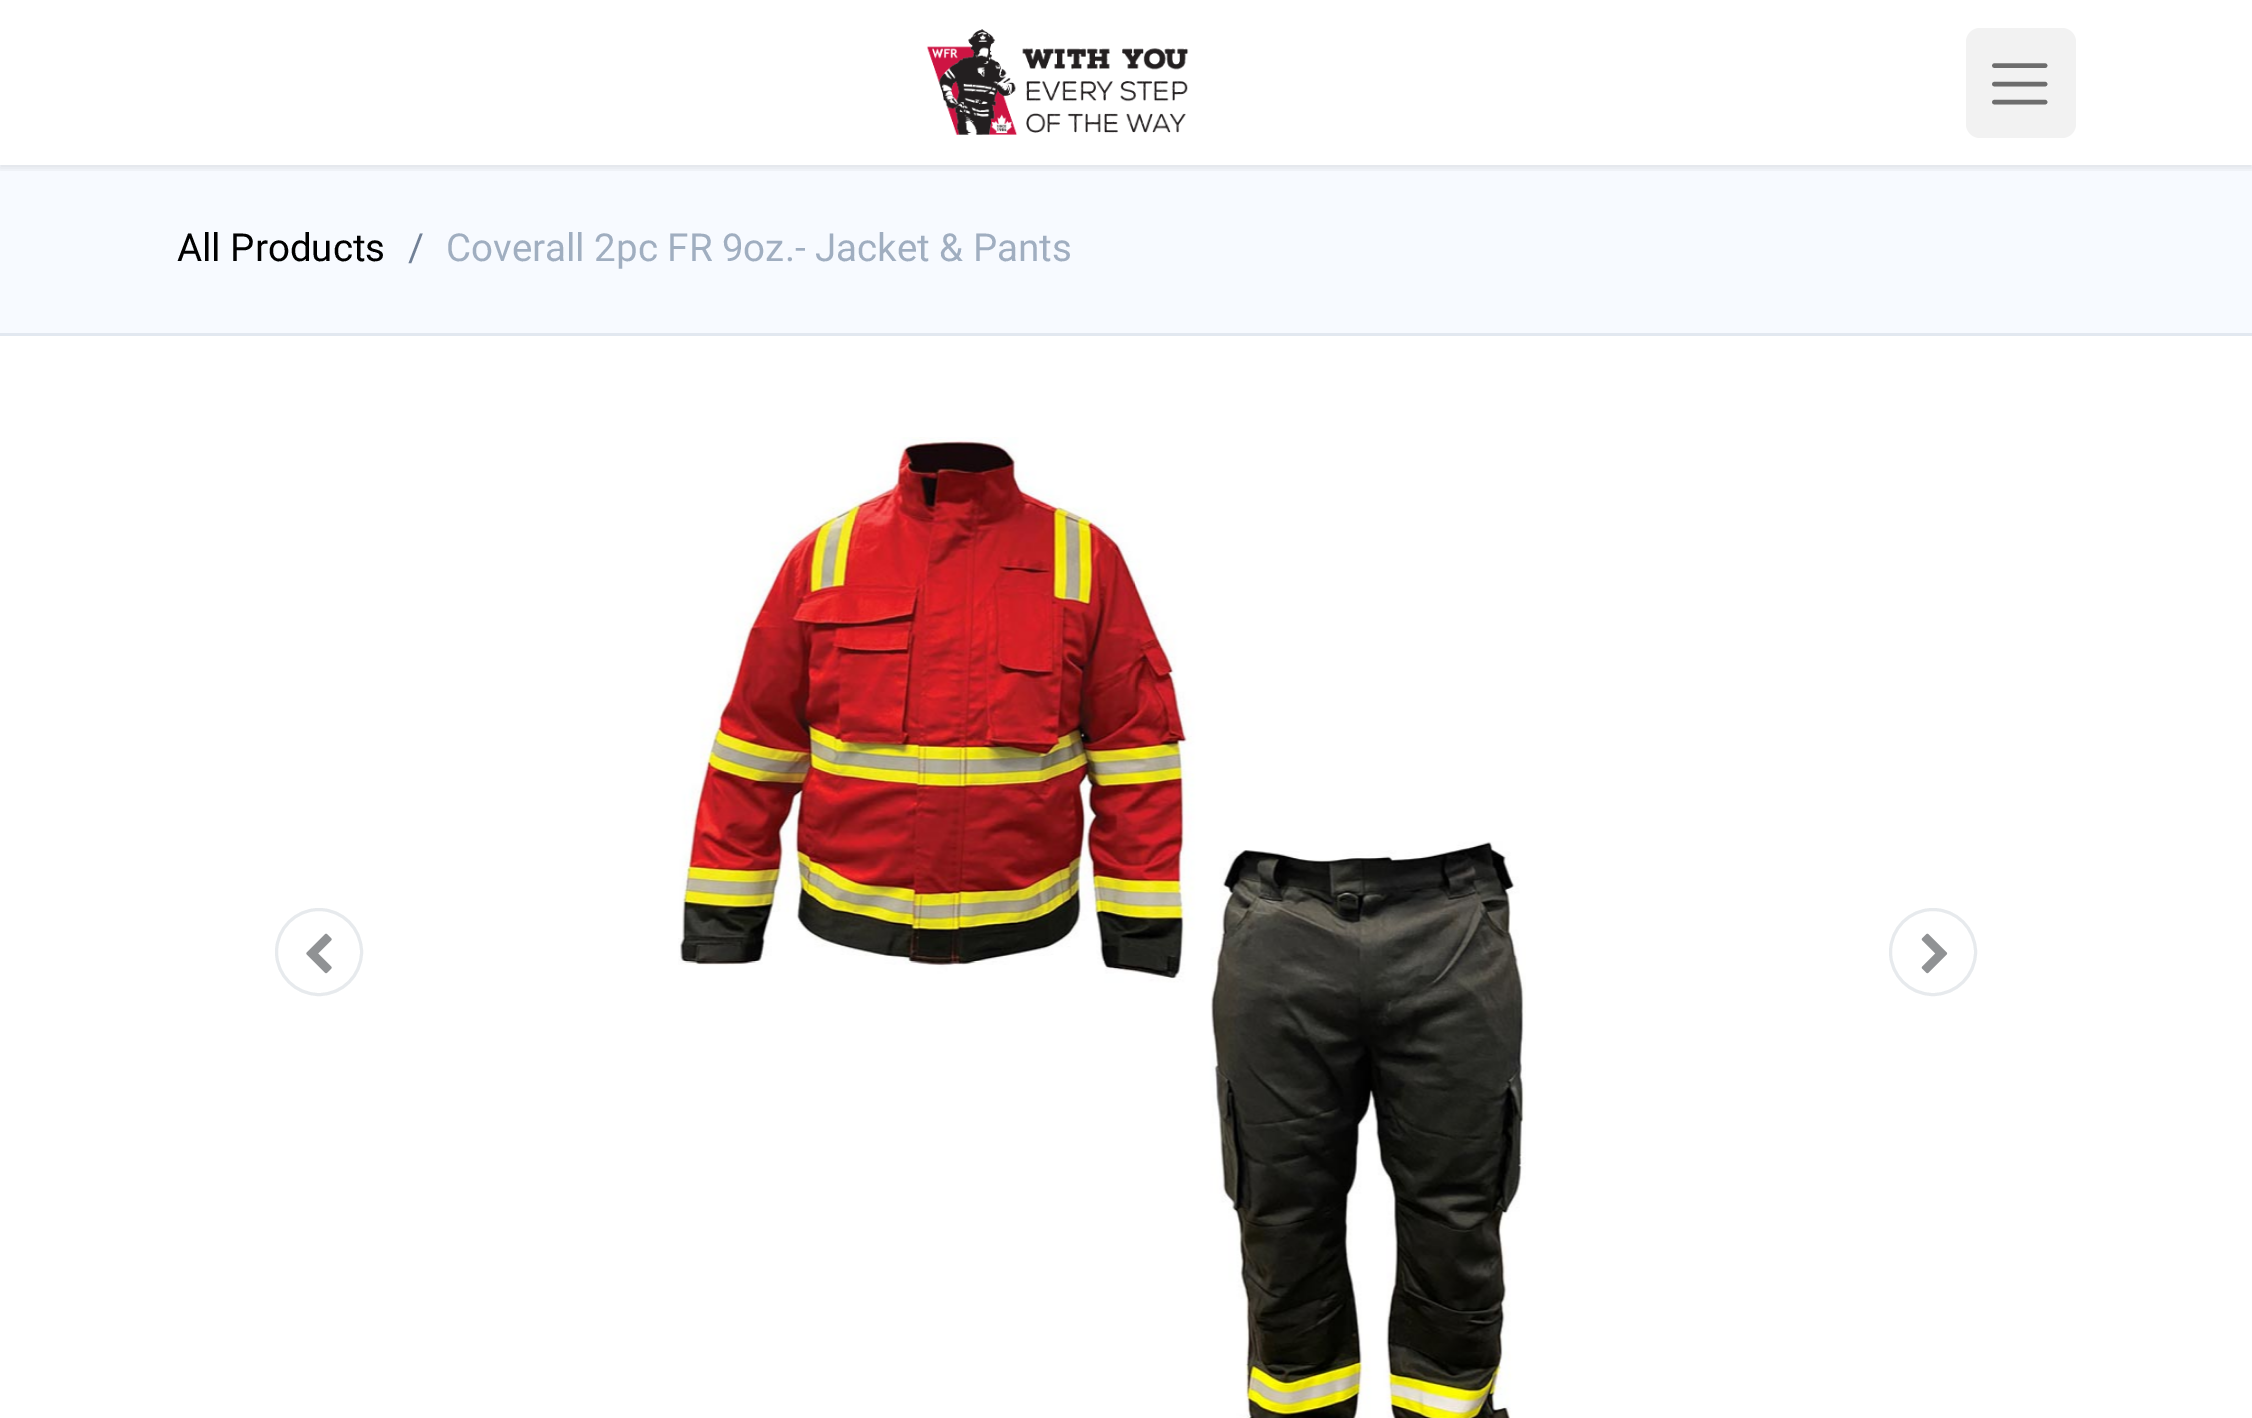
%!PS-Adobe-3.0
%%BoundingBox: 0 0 2252 1418
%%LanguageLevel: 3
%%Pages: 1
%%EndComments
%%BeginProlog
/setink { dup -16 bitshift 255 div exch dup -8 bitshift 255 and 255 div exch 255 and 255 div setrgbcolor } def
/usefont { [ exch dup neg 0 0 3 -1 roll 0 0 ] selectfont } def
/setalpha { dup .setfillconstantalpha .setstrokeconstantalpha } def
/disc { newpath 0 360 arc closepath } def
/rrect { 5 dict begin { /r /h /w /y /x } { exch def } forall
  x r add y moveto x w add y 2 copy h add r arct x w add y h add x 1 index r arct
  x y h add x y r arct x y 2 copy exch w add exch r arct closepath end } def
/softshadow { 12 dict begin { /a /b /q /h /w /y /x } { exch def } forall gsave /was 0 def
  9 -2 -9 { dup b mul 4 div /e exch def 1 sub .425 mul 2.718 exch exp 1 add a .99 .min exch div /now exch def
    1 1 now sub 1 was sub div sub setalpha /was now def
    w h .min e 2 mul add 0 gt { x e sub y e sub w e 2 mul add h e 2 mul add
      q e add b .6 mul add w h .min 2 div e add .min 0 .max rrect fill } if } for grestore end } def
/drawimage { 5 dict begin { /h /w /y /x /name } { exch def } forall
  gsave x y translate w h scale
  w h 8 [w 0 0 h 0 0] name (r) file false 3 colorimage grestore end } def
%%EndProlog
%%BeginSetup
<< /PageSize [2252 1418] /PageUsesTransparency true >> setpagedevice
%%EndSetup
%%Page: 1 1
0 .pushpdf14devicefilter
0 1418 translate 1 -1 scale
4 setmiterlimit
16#FFFFFF setink
0 0 2252 1418 rectfill
16#F7FAFF setink
0 165 2252 168 rectfill
gsave
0 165 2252 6 rectclip
16#000000 setink
0 3 2252 165 0 4 0.1 softshadow
grestore
(img1.raw) 926 29 263 106 drawimage
16#F2F2F2 setink
1966 28 110 110 14 rrect fill
16#6D6D6D setink
4.6 setlinewidth
1 setlinecap
1994.5 65.5 moveto 2045 65.5 lineto 1994.5 84 moveto 2045 84 lineto 1994.5 102 moveto 2045 102 lineto stroke
16#E2E8F0 setink
0 333 2252 3 rectfill
/Roboto-Regular 38.5 usefont
16#000000 setink
177 261 moveto (All Products) show
16#718096 setink
408 261 moveto (/) show
16#A0AEC0 setink
446 261 moveto (Coverall 2pc FR 9oz.- Jacket & Pants) show
16#E7EAED setink
3 setlinewidth
0 setlinecap
319 952 42.5 disc stroke
(img2.raw) 306 933 26 41 drawimage
(img3.raw) 678 437 848 981 drawimage
1933 952 42.5 disc stroke
(img4.raw) 1921 933 27 41 drawimage
.poppdf14devicefilter showpage
%%EOF
